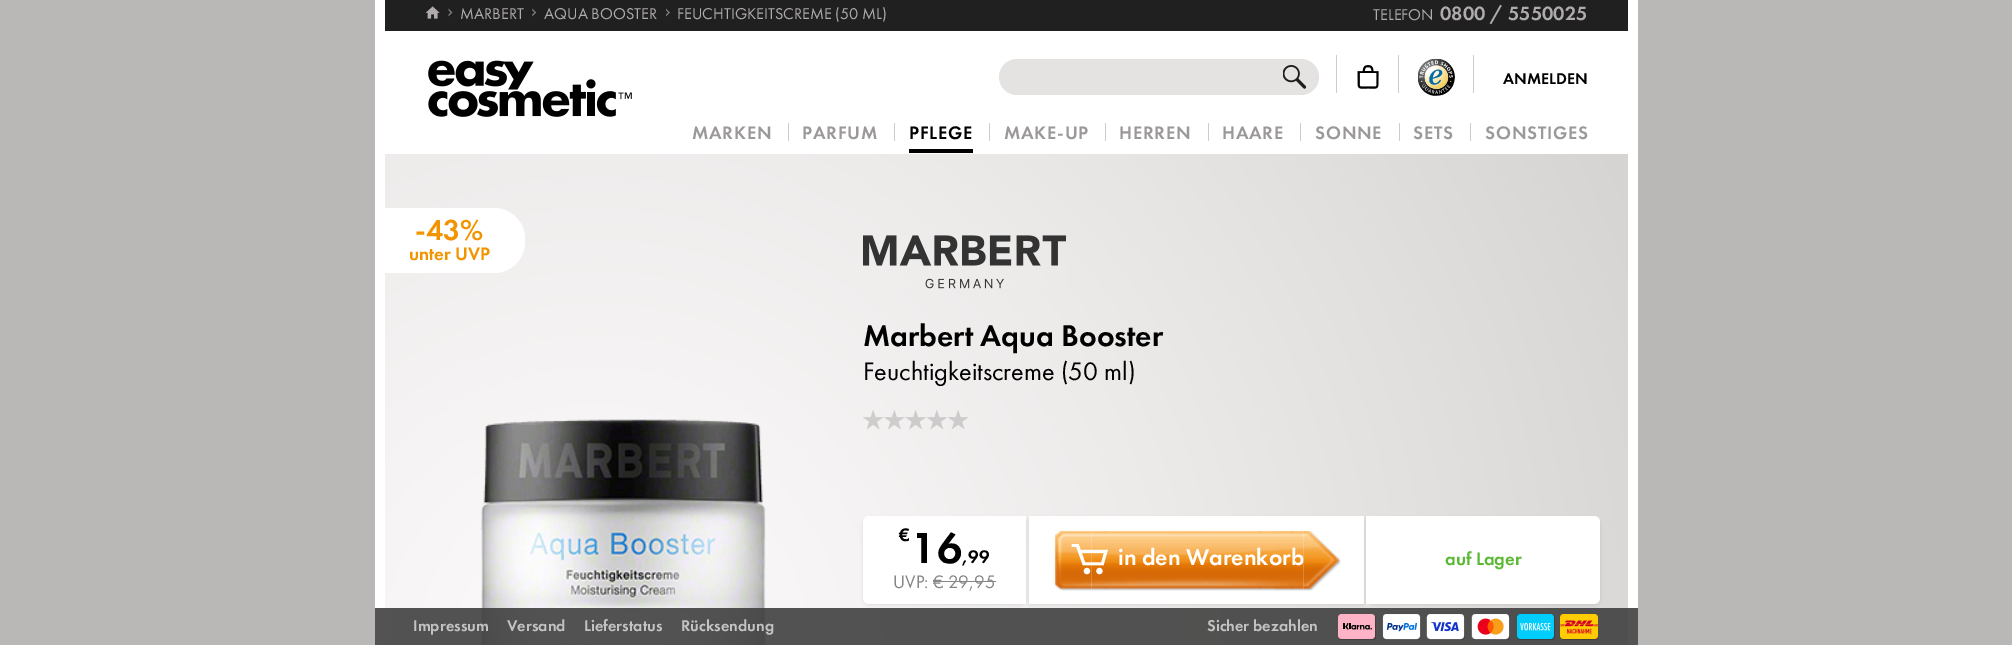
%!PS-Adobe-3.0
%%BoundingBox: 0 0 2012 645
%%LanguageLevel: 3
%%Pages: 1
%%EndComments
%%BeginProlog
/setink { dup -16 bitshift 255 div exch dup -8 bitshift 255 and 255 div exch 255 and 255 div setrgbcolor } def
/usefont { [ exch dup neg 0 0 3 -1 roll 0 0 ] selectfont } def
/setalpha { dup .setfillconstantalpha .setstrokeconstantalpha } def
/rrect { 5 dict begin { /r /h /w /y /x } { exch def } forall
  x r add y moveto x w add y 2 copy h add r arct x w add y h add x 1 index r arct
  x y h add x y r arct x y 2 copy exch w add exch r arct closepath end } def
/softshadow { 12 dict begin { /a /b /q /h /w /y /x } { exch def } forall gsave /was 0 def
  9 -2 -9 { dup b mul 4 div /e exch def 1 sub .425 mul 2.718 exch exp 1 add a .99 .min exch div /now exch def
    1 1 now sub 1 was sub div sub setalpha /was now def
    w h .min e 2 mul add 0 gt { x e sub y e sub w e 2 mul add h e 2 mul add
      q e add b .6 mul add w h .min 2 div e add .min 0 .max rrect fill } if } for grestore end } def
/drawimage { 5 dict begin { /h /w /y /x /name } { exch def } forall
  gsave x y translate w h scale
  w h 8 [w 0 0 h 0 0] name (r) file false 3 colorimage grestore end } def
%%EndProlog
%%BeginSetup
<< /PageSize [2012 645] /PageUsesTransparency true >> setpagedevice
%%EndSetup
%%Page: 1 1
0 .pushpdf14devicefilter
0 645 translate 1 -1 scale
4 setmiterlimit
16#FFFFFF setink
0 0 2012 645 rectfill
[
    [0 0 375 645 16#B9B8B6]
    [1638 0 374 645 16#B9B8B6]
    [385 0 1243 31 16#202020]
] { aload pop setink rectfill } forall
(img1.raw) 425 6 15 13 drawimage
(img2.raw) 448 8 5 9 drawimage
/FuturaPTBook-Regular 16.25 usefont
16#B0ACAE setink
460 19 moveto (MARBERT) show
(img3.raw) 532 8 5 9 drawimage
544 19 moveto (AQUA BOOSTER) show
(img4.raw) 666 8 4 9 drawimage
677 19 moveto (FEUCHTIGKEITSCREME \(50 ML\)) show
1373 20 moveto (TELEFON) show
/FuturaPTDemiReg-Regular 20 usefont
1440 20 moveto (0800 / 5550025) show
(img5.raw) 428 60 204 57 drawimage
16#E5E3E1 setink
999 59 320 36 18 rrect fill
(img6.raw) 1283 65 23 24 drawimage
16#CCCCCC setink
1336 55 1 38 rectfill
(img7.raw) 1357 65 22 24 drawimage
1398 55 1 38 rectfill
(img8.raw) 1418 59 37 37 drawimage
1473 55 1 38 rectfill
/FuturaPTDemiReg-Regular 16.25 usefont
16#000000 setink
1503 84 moveto (ANMELDEN) show
/FuturaPTDemiReg-Regular 18.75 usefont
16#9B9899 setink
692 139 moveto 0.75 0 (MARKEN) ashow
16#CCCCCC setink
788 123 1 18 rectfill
16#9B9899 setink
802 139 moveto 0.75 0 (PARFUM) ashow
16#CCCCCC setink
894 123 1 18 rectfill
16#000000 setink
909 139 moveto 0.75 0 (PFLEGE) ashow
909 149 64 4 rectfill
16#CCCCCC setink
989 123 1 18 rectfill
16#9B9899 setink
1004 139 moveto 0.75 0 (MAKE‑UP) ashow
16#CCCCCC setink
1105 123 1 18 rectfill
16#9B9899 setink
1119 139 moveto 0.75 0 (HERREN) ashow
16#CCCCCC setink
1208 123 1 18 rectfill
16#9B9899 setink
1222 139 moveto 0.75 0 (HAARE) ashow
16#CCCCCC setink
1300 123 1 18 rectfill
16#9B9899 setink
1315 139 moveto 0.75 0 (SONNE) ashow
16#CCCCCC setink
1399 123 1 18 rectfill
16#9B9899 setink
1413 139 moveto 0.75 0 (SETS) ashow
16#CCCCCC setink
1470 123 1 18 rectfill
16#9B9899 setink
1485 139 moveto 0.75 0 (SONSTIGES) ashow
gsave 385 154 moveto 1628 154 lineto 1628 645 lineto 385 645 lineto closepath clip newpath 596 654 translate 1146 1146 scale
<< /ShadingType 3 /ColorSpace /DeviceRGB /Coords [0 0 0 0 0 1] /Extend [true true] /Function << /FunctionType 3 /Domain [0 1] /Functions [<< /FunctionType 2 /Domain [0 1] /C0 [0.992 0.984 0.984] /C1 [0.929 0.922 0.918] /N 1 >> << /FunctionType 2 /Domain [0 1] /C0 [0.929 0.922 0.918] /C1 [0.835 0.831 0.824] /N 1 >>] /Bounds [0.5] /Encode [0 1 0 1] >> >> shfill grestore
16#FFFFFF setink
375 208 moveto 494 208 lineto 511 208 525 222 525 239 curveto 525 242 lineto 525 259 511 273 494 273 curveto 375 273 lineto closepath fill
/FuturaPTDemiReg-Regular 30 usefont
16#F29400 setink
415 240 moveto (-43%) show
/FuturaPTDemiReg-Regular 18.75 usefont
409 260 moveto (unter UVP) show
(img9.raw) 481 419 285 226 drawimage
(img10.raw) 863 235 203 54 drawimage
/FuturaPTDemiReg-Regular 31.25 usefont
16#000000 setink
863 346 moveto (Marbert Aqua Booster) show
/FuturaPTBook-Regular 26.25 usefont
863 380 moveto (Feuchtigkeitscreme \(50 ml\)) show
(img11.raw) 863 410 21 20 drawimage
(img12.raw) 884 410 21 20 drawimage
(img13.raw) 905 410 21 20 drawimage
(img14.raw) 926 410 21 20 drawimage
(img15.raw) 948 410 21 20 drawimage
864 519 161 85 5 2 0.15 softshadow
16#FFFFFF setink
869 516 moveto 1026 516 lineto 1026 604 lineto 869 604 lineto 865.5 604 863 601.5 863 598 curveto 863 522 lineto 863 518.5 865.5 516 869 516 curveto closepath fill
/FuturaPTDemiReg-Regular 18.75 usefont
16#000000 setink
899 541 moveto (€) show
/FuturaPTDemiReg-Regular 45 usefont
911 563 moveto (16) show
/FuturaPTDemiReg-Regular 18.75 usefont
962 563 moveto (,99) show
/FuturaPTBook-Regular 18.75 usefont
16#868686 setink
893 588 moveto (UVP: € 29,95) show
933 581 63 1 rectfill
16#000000 setink
1030 519 333 85 0 2 0.15 softshadow
16#FFFFFF setink
1029 516 335 88 rectfill
(img16.raw) 1054 530 38 61 drawimage
(img19.raw) 1091 530 213 61 drawimage
/FuturaPTDemiReg-Regular 23.75 usefont
1118 565 moveto (in den Warenkorb) show
(img17.raw) 1303 530 38 61 drawimage
(img18.raw) 1071 544 37 31 drawimage
16#000000 setink
1368 519 231 85 5 2 0.15 softshadow
16#FFFFFF setink
1366 516 moveto 1594 516 lineto 1597.5 516 1600 518.5 1600 522 curveto 1600 598 lineto 1600 601.5 1597.5 604 1594 604 curveto 1366 604 lineto closepath fill
/FuturaPTDemiReg-Regular 18.75 usefont
16#5AB835 setink
1445 565 moveto (auf Lager) show
0.9 setalpha
16#404040 setink
375 608 1263 37 rectfill
/FuturaPTDemiReg-Regular 16.25 usefont
1 setalpha
16#C3C3C3 setink
[
    [(Impressum) 413 631]
    [(Versand) 507 631]
    [(Lieferstatus) 584 631]
    [(Rücksendung) 681 631]
    [(Sicher bezahlen) 1207 631]
] { aload pop moveto show } forall
(img20.raw) 1338 614 38 26 drawimage
(img21.raw) 1382 614 39 26 drawimage
(img22.raw) 1426 614 39 26 drawimage
(img23.raw) 1471 614 39 26 drawimage
(img24.raw) 1517 614 38 26 drawimage
(img25.raw) 1560 614 38 26 drawimage
.poppdf14devicefilter showpage
%%EOF
